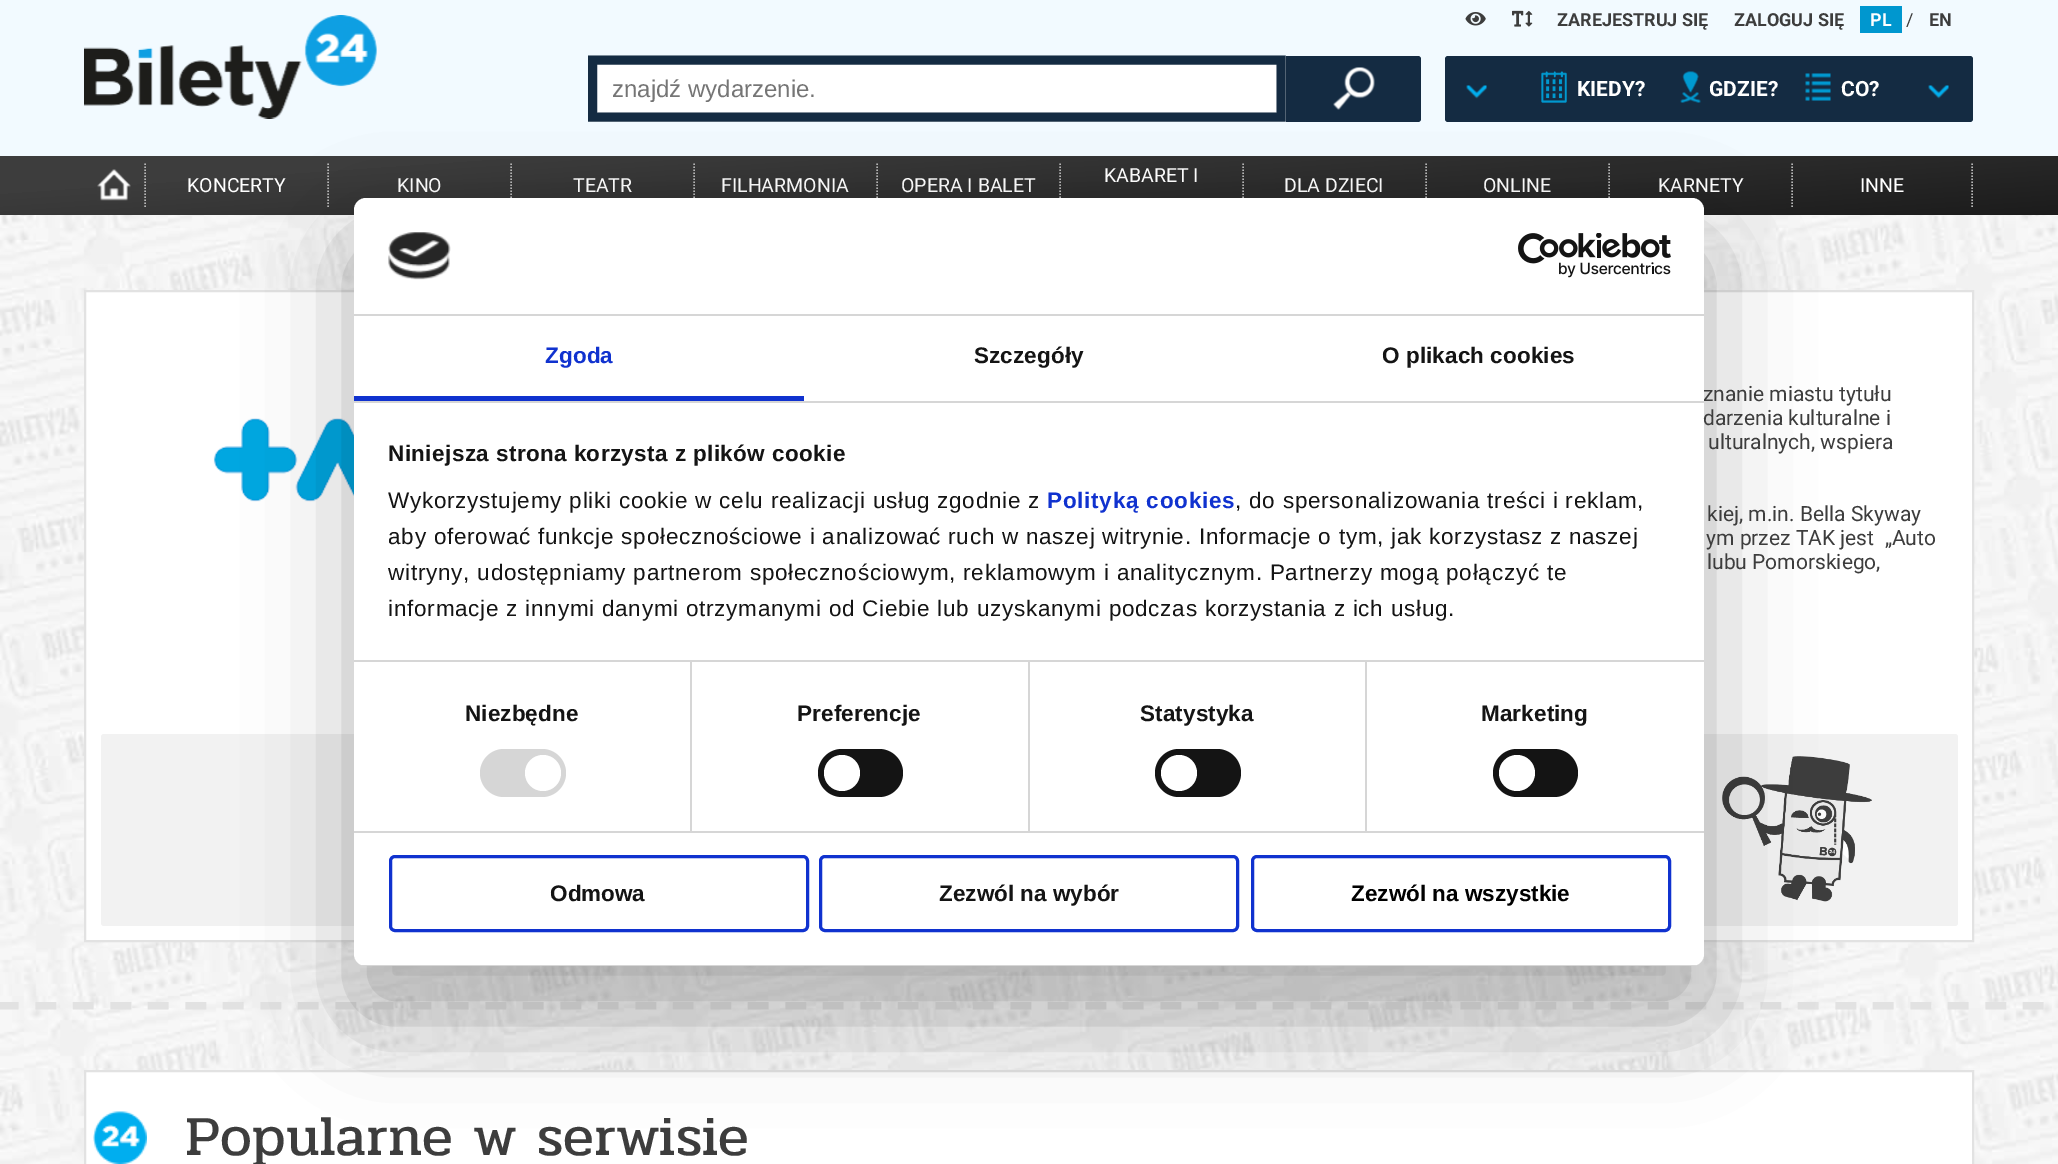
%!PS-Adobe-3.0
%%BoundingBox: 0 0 2058 1164
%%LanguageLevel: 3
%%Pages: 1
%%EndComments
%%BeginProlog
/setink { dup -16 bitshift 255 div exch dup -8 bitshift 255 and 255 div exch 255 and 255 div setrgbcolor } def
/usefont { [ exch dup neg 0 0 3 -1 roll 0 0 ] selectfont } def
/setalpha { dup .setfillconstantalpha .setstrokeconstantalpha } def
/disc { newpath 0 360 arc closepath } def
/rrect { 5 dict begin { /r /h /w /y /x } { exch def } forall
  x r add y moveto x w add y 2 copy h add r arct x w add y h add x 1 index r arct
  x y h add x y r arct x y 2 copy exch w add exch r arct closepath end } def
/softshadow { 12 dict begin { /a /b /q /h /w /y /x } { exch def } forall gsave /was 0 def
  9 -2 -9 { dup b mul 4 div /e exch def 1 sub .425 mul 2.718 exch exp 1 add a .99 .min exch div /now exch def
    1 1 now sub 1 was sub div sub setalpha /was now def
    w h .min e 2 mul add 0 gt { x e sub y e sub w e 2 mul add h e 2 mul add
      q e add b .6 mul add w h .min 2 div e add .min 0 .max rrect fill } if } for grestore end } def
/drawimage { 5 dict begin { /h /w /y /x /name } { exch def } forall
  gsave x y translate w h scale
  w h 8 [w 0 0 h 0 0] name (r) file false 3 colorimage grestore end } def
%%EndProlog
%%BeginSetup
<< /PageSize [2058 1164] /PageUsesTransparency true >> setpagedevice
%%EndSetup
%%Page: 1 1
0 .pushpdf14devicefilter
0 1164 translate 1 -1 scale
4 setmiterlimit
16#FFFFFF setink
0 0 2058 1164 rectfill
(img1.raw) 0 215 2058 949 drawimage
16#F2FAFF setink
0 0 2058 156 rectfill
(img2.raw) 84 15 293 104 drawimage
(img3.raw) 1465 12 21 14 drawimage
(img4.raw) 1512 10 21 17 drawimage
/Roboto-Bold 18 usefont
16#3D3D3D setink
1557 26 moveto (ZAREJESTRUJ SIĘ) show
1734 26 moveto (ZALOGUJ SIĘ) show
16#0097CF setink
1860 6 42 27 rectfill
16#FFFFFF setink
1870 26 moveto (PL) show
/Roboto-Regular 18 usefont
16#3D3D3D setink
1906 26 moveto (/) show
/Roboto-Bold 18 usefont
1929 26 moveto (EN) show
16#FFFFFF setink
591 56 moveto 1286 56 lineto 1286 122 lineto 591 122 lineto 589.5 122 588 120.5 588 119 curveto 588 59 lineto 588 57.5 589.5 56 591 56 curveto closepath fill
16#142B42 setink
9 setlinewidth
592.5 60 moveto 1281 60 lineto 1281 117 lineto 592.5 117 lineto closepath stroke
/LiberationSans-Regular 24 usefont
16#757575 setink
612 97 moveto (znajdź wydarzenie.) show
16#142B42 setink
1286 56 moveto 1418 56 lineto 1419.5 56 1421 57.5 1421 59 curveto 1421 119 lineto 1421 120.5 1419.5 122 1418 122 curveto 1286 122 lineto closepath fill
(img5.raw) 1333 67 42 43 drawimage
1445 56 528 66 3 rrect fill
(img6.raw) 1466 85 21 14 drawimage
(img7.raw) 1541 71 26 32 drawimage
/Roboto-Bold 21 usefont
16#FFFFFF setink
1577 96 moveto (KIEDY?) show
(img8.raw) 1680 71 21 32 drawimage
1709 96 moveto (GDZIE?) show
(img9.raw) 1805 73 26 28 drawimage
1841 96 moveto (CO?) show
(img10.raw) 1928 85 21 14 drawimage
gsave 0 156 moveto 2058 156 lineto 2058 215 lineto 0 215 lineto closepath clip newpath
<< /ShadingType 2 /ColorSpace /DeviceRGB /Coords [1022 85 1036 286] /Extend [true true] /Function << /FunctionType 3 /Domain [0 1] /Functions [<< /FunctionType 2 /Domain [0 1] /C0 [0.239 0.239 0.239] /C1 [0.239 0.239 0.239] /N 1 >> << /FunctionType 2 /Domain [0 1] /C0 [0.239 0.239 0.239] /C1 [0.11 0.11 0.11] /N 1 >>] /Bounds [0.17] /Encode [0 1 0 1] >> >> shfill grestore
(img11.raw) 97 169 34 32 drawimage
16#B8B8B8 setink
1.5 setlinewidth
[1.5 1.5] 0 setdash
145 163.5 moveto 145 208.5 lineto stroke
/Roboto-Regular 19.5 usefont
16#FFFFFF setink
187 192 moveto (KONCERTY) show
16#B8B8B8 setink
328 163.5 moveto 328 208.5 lineto stroke
16#FFFFFF setink
397 192 moveto (KINO) show
16#B8B8B8 setink
511 163.5 moveto 511 208.5 lineto stroke
16#FFFFFF setink
573 192 moveto (TEATR) show
16#B8B8B8 setink
694 163.5 moveto 694 208.5 lineto stroke
16#FFFFFF setink
721 192 moveto (FILHARMONIA) show
16#B8B8B8 setink
877 163.5 moveto 877 208.5 lineto stroke
16#FFFFFF setink
901 192 moveto (OPERA I BALET) show
16#B8B8B8 setink
1060 163.5 moveto 1060 208.5 lineto stroke
16#FFFFFF setink
1104 182 moveto (KABARET I) show
16#B8B8B8 setink
1243 163.5 moveto 1243 208.5 lineto stroke
16#FFFFFF setink
1284 192 moveto (DLA DZIECI) show
16#B8B8B8 setink
1426 163.5 moveto 1426 208.5 lineto stroke
16#FFFFFF setink
1483 192 moveto (ONLINE) show
16#B8B8B8 setink
1609 163.5 moveto 1609 208.5 lineto stroke
16#FFFFFF setink
1658 192 moveto (KARNETY) show
16#B8B8B8 setink
1972 163.5 moveto 1972 208.5 lineto stroke
1792 163.5 moveto 1792 208.5 lineto stroke
16#FFFFFF setink
1860 192 moveto (INNE) show
85 291 moveto 1973 291 lineto 1973 941 lineto 85 941 lineto closepath gsave fill grestore
16#E2E2E2 setink
2 setlinewidth
[] 0 setdash
stroke
(img14.raw) 213 418 141 84 drawimage
16#F2F2F2 setink
101 734 1857 192 3 rrect fill
(img15.raw) 1722 756 150 146 drawimage
(img16.raw) 0 1002 2044 8 drawimage
16#FFFFFF setink
85 1071 moveto 1973 1071 lineto 1973 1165 lineto 85 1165 lineto closepath gsave fill grestore
16#E2E2E2 setink
stroke
16#000000 setink
354 246 1350 768 12 51 0.3 softshadow
16#FFFFFF setink
354 198 1350 768 12 rrect fill
16#D6D6D6 setink
354 314 1350 2 rectfill
(img12.raw) 388 232 63 48 drawimage
(img13.raw) 1518 233 153 45 drawimage
354 401 1350 2 rectfill
16#1032CF setink
354 396 450 5 rectfill
/LiberationSans-Bold 22.5 usefont
545 363 moveto 0.1 0 (Zgoda) ashow
16#141414 setink
974 363 moveto 0.1 0 (Szczegóły) ashow
1382 363 moveto 0.1 0 (O plikach cookies) ashow
16#D6D6D6 setink
354 660 1350 2 rectfill
16#141414 setink
388 461 moveto 0.4 0 (Niniejsza strona korzysta z plików cookie) ashow
/LiberationSans-Regular 22.5 usefont
388 508 moveto 0.75 0 (Wykorzystujemy pliki cookie w celu realizacji usług zgodnie z) ashow
/LiberationSans-Bold 22.5 usefont
16#1032CF setink
1047 508 moveto 0.75 0 (Polityką cookies) ashow
/LiberationSans-Regular 22.5 usefont
16#141414 setink
1235 508 moveto 0.75 0 (, do spersonalizowania treści i reklam,) ashow
388 544 moveto 0.75 0 (aby oferować funkcje społecznościowe i analizować ruch w naszej witrynie. Informacje o tym, jak korzystasz z naszej) ashow
388 580 moveto 0.75 0 (witryny, udostępniamy partnerom społecznościowym, reklamowym i analitycznym. Partnerzy mogą połączyć te) ashow
388 616 moveto 0.75 0 (informacje z innymi danymi otrzymanymi od Ciebie lub uzyskanymi podczas korzystania z ich usług.) ashow
16#D6D6D6 setink
354 831 1350 2 rectfill
690 662 2 169 rectfill
/LiberationSans-Bold 22.5 usefont
16#141414 setink
465 721 moveto 0.1 0 (Niezbędne) ashow
16#D6D6D6 setink
480 749 86 48 24 rrect fill
16#FFFFFF setink
543 773 18 disc fill
16#D6D6D6 setink
1028 662 2 169 rectfill
16#141414 setink
797 721 moveto 0.1 0 (Preferencje) ashow
818 749 85 48 24 rrect fill
16#FFFFFF setink
842 773 18 disc fill
16#D6D6D6 setink
1365 662 2 169 rectfill
16#141414 setink
1140 721 moveto 0.1 0 (Statystyka) ashow
1155 749 86 48 24 rrect fill
16#FFFFFF setink
1179 773 18 disc fill
16#141414 setink
1481 721 moveto 0.1 0 (Marketing) ashow
1493 749 85 48 24 rrect fill
16#FFFFFF setink
1517 773 18 disc fill
gsave
354 198 1350 768 12 rrect clip newpath
16#D6D6D6 setink
354 965 1350 1 rectfill
grestore
16#1032CF setink
3 setlinewidth
390.5 856.5 417 74 4.5 rrect stroke
16#141414 setink
550 901 moveto (Odmowa) show
16#1032CF setink
820.5 856.5 417 74 4.5 rrect stroke
16#141414 setink
939 901 moveto (Zezwól na wybór) show
16#1032CF setink
1252.5 856.5 417 74 4.5 rrect stroke
16#000000 setink
1351 901 moveto (Zezwól na wszystkie) show
/Roboto-Regular 21 usefont
16#3D3D3D setink
[
    [(znanie miastu tytułu) 1703 401]
    [(darzenia kulturalne i) 1703 425]
    [(ulturalnych, wspiera) 1708 449]
    [(kiej, m.in. Bella Skyway) 1707 521]
    [(ym przez TAK jest  „Auto) 1706 545]
    [(lubu Pomorskiego,) 1707 569]
] { aload pop moveto show } forall
(img17.raw) 93 1111 54 53 drawimage
/Pridi-Regular 57 usefont
185 1155 moveto (Popularne w serwisie) show
.poppdf14devicefilter showpage
%%EOF
